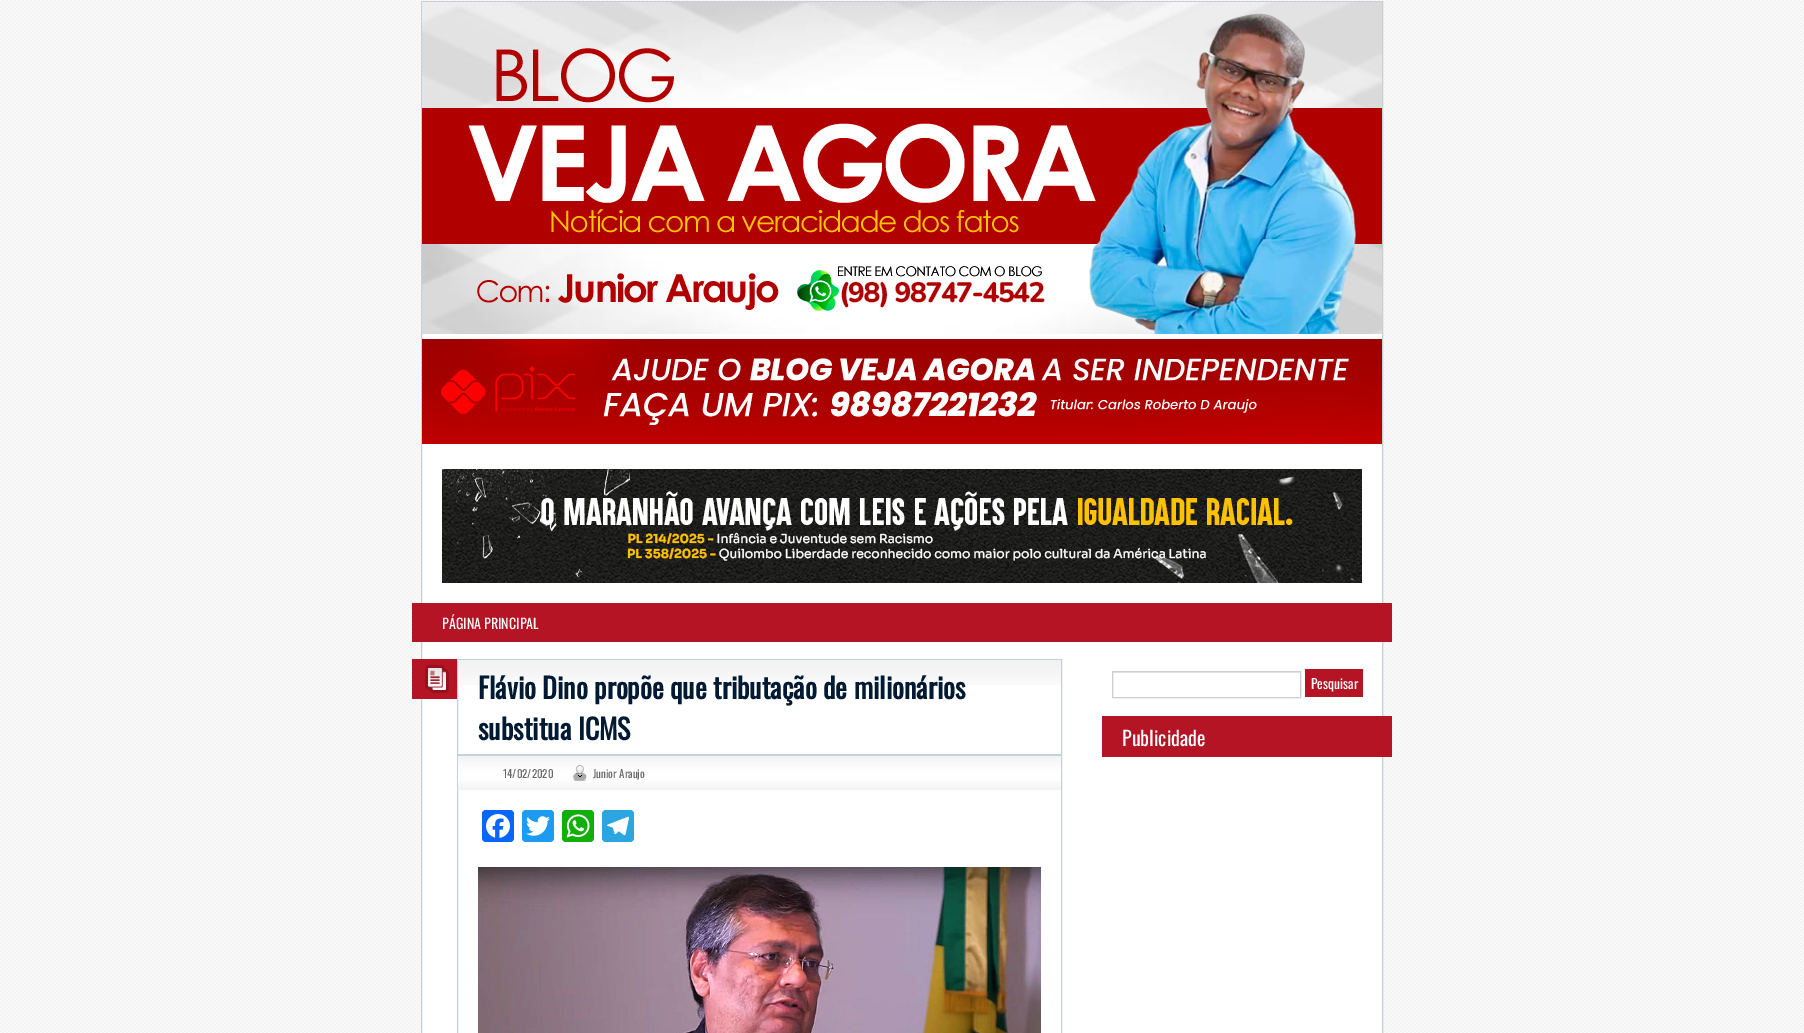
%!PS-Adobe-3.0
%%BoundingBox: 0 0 1804 1033
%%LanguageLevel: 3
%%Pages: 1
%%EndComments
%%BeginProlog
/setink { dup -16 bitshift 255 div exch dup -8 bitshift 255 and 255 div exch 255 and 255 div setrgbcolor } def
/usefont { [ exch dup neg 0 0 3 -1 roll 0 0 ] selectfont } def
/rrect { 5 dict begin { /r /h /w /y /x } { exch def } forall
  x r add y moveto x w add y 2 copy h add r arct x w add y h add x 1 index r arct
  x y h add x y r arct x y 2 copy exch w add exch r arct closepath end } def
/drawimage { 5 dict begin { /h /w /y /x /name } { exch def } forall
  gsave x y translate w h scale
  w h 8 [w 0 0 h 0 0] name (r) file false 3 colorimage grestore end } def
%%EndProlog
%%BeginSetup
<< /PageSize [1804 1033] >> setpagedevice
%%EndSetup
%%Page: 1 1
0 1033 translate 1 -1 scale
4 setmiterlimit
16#FFFFFF setink
0 0 1804 1033 rectfill
(img1.raw) 0 0 1804 1033 drawimage
422 334 960 699 rectfill
16#C5D1D9 setink
421.5 1.5 961 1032 rectstroke
(img2.raw) 422 2 960 332 drawimage
(img3.raw) 422 339 960 105 drawimage
(img4.raw) 442 469 920 114 drawimage
16#B41423 setink
412 603 980 39 rectfill
/Oswald-Regular 14 usefont
16#FFFFFF setink
442 629 moveto (PÁGINA PRINCIPAL) show
16#B41423 setink
412 659 45 40 rectfill
(img5.raw) 425 665 24 28 drawimage
16#C5D1D9 setink
457.5 659.5 604 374 rectstroke
(img6.raw) 458 661 603 24 drawimage
458 754 603 2 rectfill
/Oswald-Bold 28 usefont
16#001A33 setink
478 699 moveto (Flávio Dino propõe que tributação de milionários) show
478 740 moveto (substitua ICMS) show
(img7.raw) 458 756 603 34 drawimage
/Oswald-Regular 11 usefont
16#666666 setink
503 778 moveto (14/02/2020) show
(img8.raw) 573 765 14 16 drawimage
593 778 moveto (Junior Araujo) show
16#0866FF setink
482 810 32 32 4 rrect fill
(img9.raw) 486 814 24 24 drawimage
16#1D9BF0 setink
522 810 32 32 4 rrect fill
(img10.raw) 526 816 24 20 drawimage
16#12AF0A setink
562 810 32 32 4 rrect fill
(img11.raw) 566 814 24 24 drawimage
16#2CA5E0 setink
602 810 32 32 4 rrect fill
(img12.raw) 607 816 22 20 drawimage
(img13.raw) 478 867 563 166 drawimage
16#E6E6E6 setink
1113 672 187 1 rectfill
16#CCCCCC setink
1112.5 671.5 188 26 rectstroke
16#B41423 setink
1305 669 58 28 rectfill
/Oswald-Regular 13.5 usefont
16#FFFFFF setink
1311 689 moveto (Pesquisar) show
16#B41423 setink
1102 716 290 41 rectfill
/Oswald-Regular 20 usefont
16#FFFFFF setink
1122 746 moveto (Publicidade) show
showpage
%%EOF
